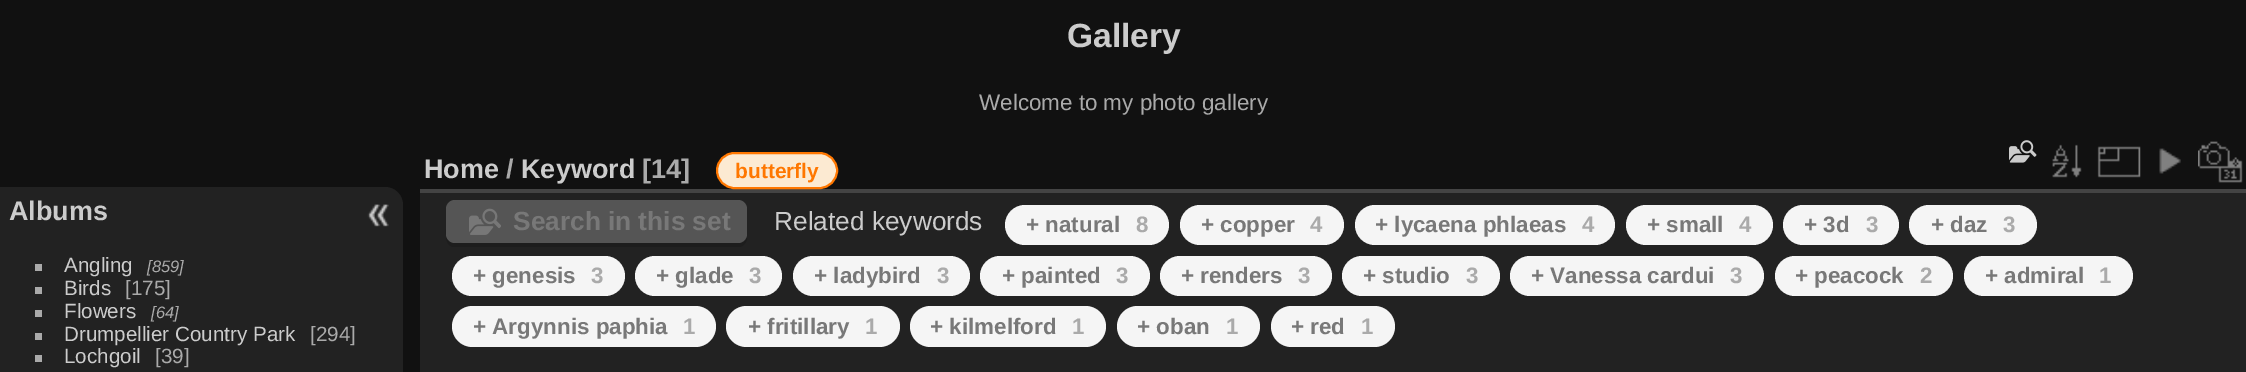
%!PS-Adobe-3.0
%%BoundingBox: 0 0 2246 372
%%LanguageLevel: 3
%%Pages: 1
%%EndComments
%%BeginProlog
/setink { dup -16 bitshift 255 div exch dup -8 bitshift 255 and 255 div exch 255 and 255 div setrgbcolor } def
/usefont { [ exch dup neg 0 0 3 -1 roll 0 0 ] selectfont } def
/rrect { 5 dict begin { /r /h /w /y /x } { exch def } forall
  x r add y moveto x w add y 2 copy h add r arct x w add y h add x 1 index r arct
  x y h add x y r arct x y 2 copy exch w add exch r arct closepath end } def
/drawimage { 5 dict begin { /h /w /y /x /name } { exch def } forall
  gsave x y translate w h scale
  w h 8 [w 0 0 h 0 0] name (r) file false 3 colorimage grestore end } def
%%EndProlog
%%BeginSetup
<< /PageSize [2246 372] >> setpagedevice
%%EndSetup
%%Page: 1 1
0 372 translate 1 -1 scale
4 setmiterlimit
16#111111 setink
0 0 2246 372 rectfill
/LiberationSans-Bold 33.5 usefont
16#CCCCCC setink
1067 47 moveto (Gallery) show
/LiberationSans-Regular 22.4 usefont
16#AAAAAA setink
979 110 moveto (Welcome to my photo gallery) show
16#222222 setink
0 187 moveto 385 187 lineto 395 187 403 195 403 205 curveto 403 372 lineto 403 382 395 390 385 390 curveto 0 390 lineto closepath fill
/LiberationSans-Bold 27 usefont
16#CCCCCC setink
9 220 moveto (Albums) show
16#AAAAAA setink
35 264 7 7 rectfill
/LiberationSans-Regular 20.6 usefont
16#CCCCCC setink
64 272 moveto (Angling) show
/LiberationSans-Italic 16.5 usefont
16#AAAAAA setink
147 272 moveto ([859]) show
35 287 7 7 rectfill
/LiberationSans-Regular 20.6 usefont
16#CCCCCC setink
64 295 moveto (Birds) show
16#AAAAAA setink
125 295 moveto ([175]) show
35 310 7 7 rectfill
16#CCCCCC setink
64 318 moveto (Flowers) show
/LiberationSans-Italic 16.5 usefont
16#AAAAAA setink
151 318 moveto ([64]) show
35 333 7 7 rectfill
/LiberationSans-Regular 20.6 usefont
16#CCCCCC setink
64 341 moveto (Drumpellier Country Park) show
16#AAAAAA setink
310 341 moveto ([294]) show
35 355 7 7 rectfill
16#CCCCCC setink
64 363 moveto (Lochgoil) show
16#AAAAAA setink
155 363 moveto ([39]) show
(img1.raw) 367 204 22 23 drawimage
16#222222 setink
420 193 1826 179 rectfill
16#444444 setink
420 189 1826 4 rectfill
/LiberationSans-Bold 27 usefont
16#CCCCCC setink
424 178 moveto (Home) show
16#AAAAAA setink
506 178 moveto (/) show
16#CCCCCC setink
521 178 moveto (Keyword) show
16#AAAAAA setink
642 178 moveto ([14]) show
16#FCEAD2 setink
717 153 120 35 17.5 rrect gsave fill grestore
16#FF7700 setink
2 setlinewidth
stroke
/LiberationSans-Bold 21 usefont
735 178 moveto (butterfly) show
(img2.raw) 2009 140 28 23 drawimage
(img3.raw) 2052 144 30 34 drawimage
(img4.raw) 2097 146 44 32 drawimage
(img5.raw) 2159 148 22 26 drawimage
(img6.raw) 2198 141 45 42 drawimage
16#1D1D1D setink
446 210 moveto 446 229 lineto 446 236 445 247 455 247 curveto 738 247 lineto 744 247 747 242 747 237 curveto 746 240 743 243 738 243 curveto 455 243 lineto 450 243 446 239 446 234 curveto closepath fill
16#555555 setink
446 200 301 43 9 rrect fill
(img7.raw) 469 208 32 27 drawimage
/LiberationSans-Bold 26.25 usefont
16#787878 setink
513 230 moveto (Search in this set) show
/LiberationSans-Regular 26.25 usefont
16#CCCCCC setink
774 230 moveto (Related keywords) show
16#F5F5F5 setink
1005 205 164 40 20 rrect fill
/LiberationSans-Bold 22.4 usefont
16#787878 setink
1026 232 moveto (+ natural) show
16#AAAAAA setink
1136 232 moveto (8) show
16#F5F5F5 setink
1180 205 164 40 20 rrect fill
16#787878 setink
1201 232 moveto (+ copper) show
16#AAAAAA setink
1310 232 moveto (4) show
16#F5F5F5 setink
1355 205 260 40 20 rrect fill
16#787878 setink
1375 232 moveto (+ lycaena phlaeas) show
16#AAAAAA setink
1582 232 moveto (4) show
16#F5F5F5 setink
1626 205 147 40 20 rrect fill
16#787878 setink
1647 232 moveto (+ small) show
16#AAAAAA setink
1739 232 moveto (4) show
16#F5F5F5 setink
1783 205 116 40 20 rrect fill
16#787878 setink
1804 232 moveto (+ 3d) show
16#AAAAAA setink
1866 232 moveto (3) show
16#F5F5F5 setink
1909 205 128 40 20 rrect fill
16#787878 setink
1931 232 moveto (+ daz) show
16#AAAAAA setink
2003 232 moveto (3) show
16#F5F5F5 setink
452 256 173 40 20 rrect fill
16#787878 setink
473 283 moveto (+ genesis) show
16#AAAAAA setink
591 283 moveto (3) show
16#F5F5F5 setink
635 256 147 40 20 rrect fill
16#787878 setink
656 283 moveto (+ glade) show
16#AAAAAA setink
749 283 moveto (3) show
16#F5F5F5 setink
793 256 177 40 20 rrect fill
16#787878 setink
814 283 moveto (+ ladybird) show
16#AAAAAA setink
937 283 moveto (3) show
16#F5F5F5 setink
980 256 170 40 20 rrect fill
16#787878 setink
1002 283 moveto (+ painted) show
16#AAAAAA setink
1116 283 moveto (3) show
16#F5F5F5 setink
1160 256 172 40 20 rrect fill
16#787878 setink
1181 283 moveto (+ renders) show
16#AAAAAA setink
1298 283 moveto (3) show
16#F5F5F5 setink
1342 256 158 40 20 rrect fill
16#787878 setink
1363 283 moveto (+ studio) show
16#AAAAAA setink
1466 283 moveto (3) show
16#F5F5F5 setink
1510 256 254 40 20 rrect fill
16#787878 setink
1531 283 moveto (+ Vanessa cardui) show
16#AAAAAA setink
1730 283 moveto (3) show
16#F5F5F5 setink
1775 256 178 40 20 rrect fill
16#787878 setink
1795 283 moveto (+ peacock) show
16#AAAAAA setink
1920 283 moveto (2) show
16#F5F5F5 setink
1964 256 169 40 20 rrect fill
16#787878 setink
1985 283 moveto (+ admiral) show
16#AAAAAA setink
2099 283 moveto (1) show
16#F5F5F5 setink
452 306 264 41 20.5 rrect fill
16#787878 setink
473 334 moveto (+ Argynnis paphia) show
16#AAAAAA setink
683 334 moveto (1) show
16#F5F5F5 setink
726 306 174 41 20.5 rrect fill
16#787878 setink
748 334 moveto (+ fritillary) show
16#AAAAAA setink
865 334 moveto (1) show
16#F5F5F5 setink
910 306 196 41 20.5 rrect fill
16#787878 setink
930 334 moveto (+ kilmelford) show
16#AAAAAA setink
1072 334 moveto (1) show
16#F5F5F5 setink
1117 306 143 41 20.5 rrect fill
16#787878 setink
1137 334 moveto (+ oban) show
16#AAAAAA setink
1226 334 moveto (1) show
16#F5F5F5 setink
1271 306 124 41 20.5 rrect fill
16#787878 setink
1291 334 moveto (+ red) show
16#AAAAAA setink
1361 334 moveto (1) show
showpage
%%EOF
